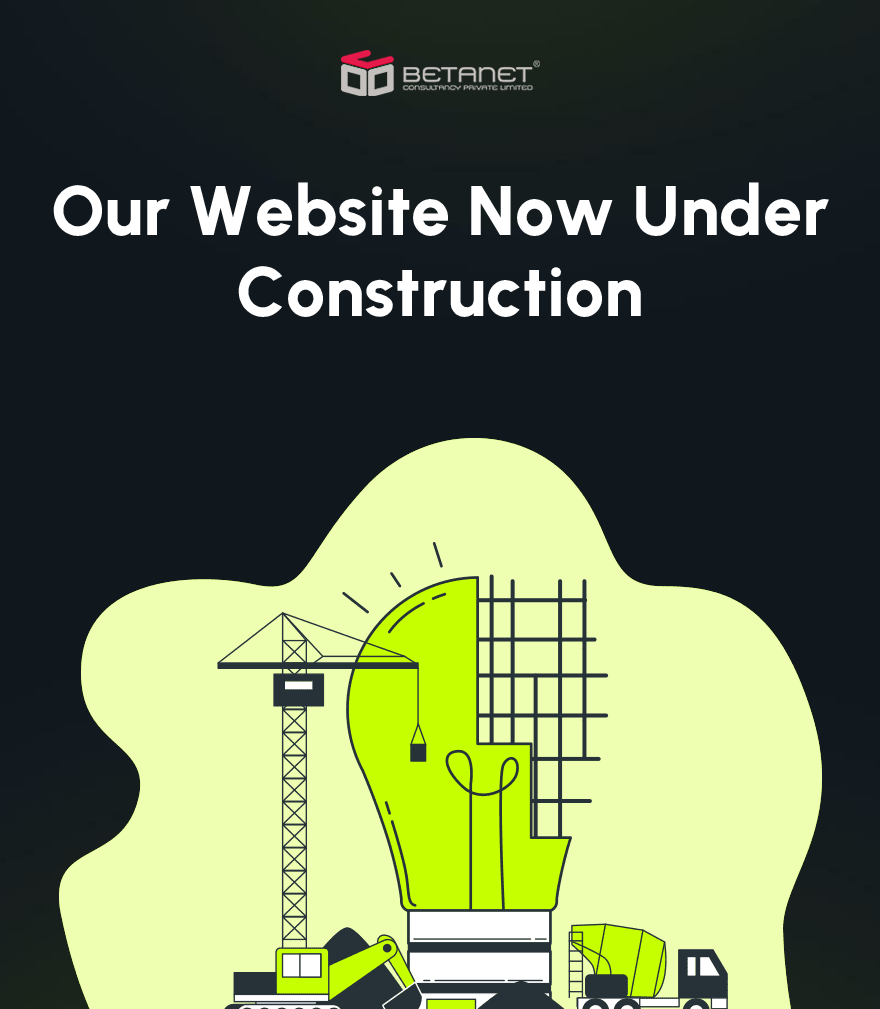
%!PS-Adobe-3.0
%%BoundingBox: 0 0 880 1009
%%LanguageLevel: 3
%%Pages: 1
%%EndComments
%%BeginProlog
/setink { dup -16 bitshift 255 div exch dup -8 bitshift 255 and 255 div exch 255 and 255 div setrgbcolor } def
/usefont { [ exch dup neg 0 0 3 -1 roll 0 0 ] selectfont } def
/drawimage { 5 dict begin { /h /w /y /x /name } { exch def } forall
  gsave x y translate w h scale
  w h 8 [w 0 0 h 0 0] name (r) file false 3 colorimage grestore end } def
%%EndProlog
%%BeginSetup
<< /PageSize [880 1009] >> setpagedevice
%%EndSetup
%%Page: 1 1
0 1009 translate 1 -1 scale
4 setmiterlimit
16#FFFFFF setink
0 0 880 1009 rectfill
(img1.raw) 0 0 880 1009 drawimage
(img2.raw) 341 50 199 46 drawimage
/Urbanist-ExtraBold 70 usefont
51 235 moveto (Our Website Now Under) show
236 316 moveto (Construction) show
(img3.raw) 59 438 763 571 drawimage
showpage
%%EOF
